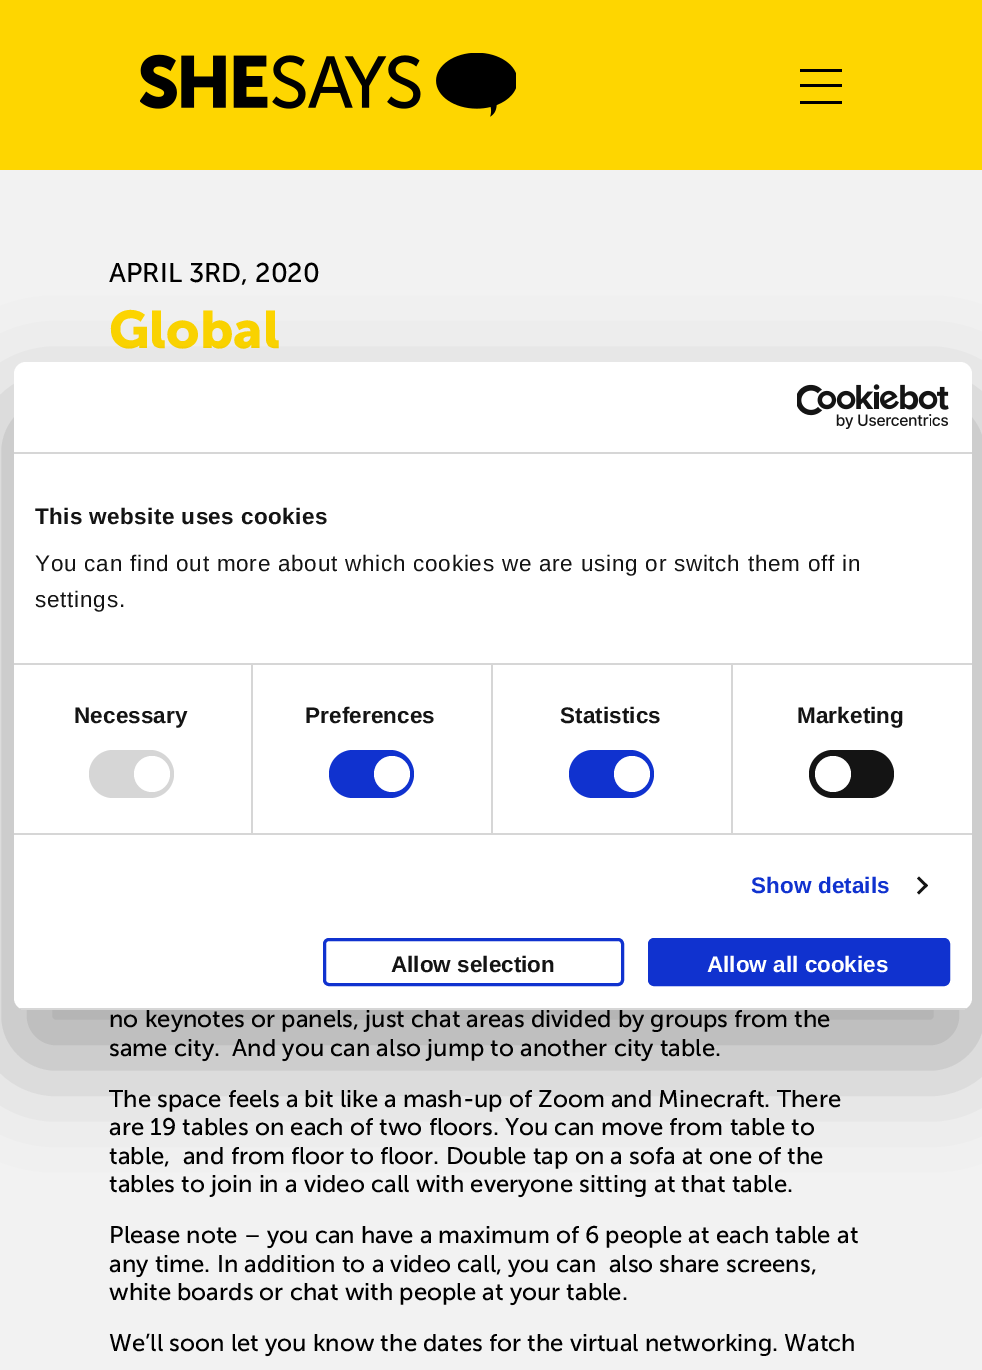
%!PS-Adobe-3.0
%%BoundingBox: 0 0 982 1370
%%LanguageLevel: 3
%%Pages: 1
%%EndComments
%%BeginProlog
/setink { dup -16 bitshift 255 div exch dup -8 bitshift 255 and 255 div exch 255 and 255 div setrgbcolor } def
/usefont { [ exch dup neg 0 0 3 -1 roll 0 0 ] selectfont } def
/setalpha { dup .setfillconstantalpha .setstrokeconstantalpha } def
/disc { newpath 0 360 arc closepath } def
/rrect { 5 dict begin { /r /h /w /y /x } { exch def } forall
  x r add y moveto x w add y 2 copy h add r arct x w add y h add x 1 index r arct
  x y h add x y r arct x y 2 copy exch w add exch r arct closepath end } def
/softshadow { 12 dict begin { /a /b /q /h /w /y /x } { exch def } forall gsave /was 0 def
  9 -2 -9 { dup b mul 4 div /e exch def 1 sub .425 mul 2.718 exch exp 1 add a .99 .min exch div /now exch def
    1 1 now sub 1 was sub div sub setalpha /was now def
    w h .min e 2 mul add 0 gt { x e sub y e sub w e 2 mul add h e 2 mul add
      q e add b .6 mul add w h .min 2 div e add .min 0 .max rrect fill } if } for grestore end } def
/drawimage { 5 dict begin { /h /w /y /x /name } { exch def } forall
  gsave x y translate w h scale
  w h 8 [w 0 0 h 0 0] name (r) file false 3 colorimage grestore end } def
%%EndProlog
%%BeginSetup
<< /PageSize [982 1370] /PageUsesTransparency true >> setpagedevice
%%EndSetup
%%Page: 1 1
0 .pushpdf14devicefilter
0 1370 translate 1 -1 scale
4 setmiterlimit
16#FED600 setink
0 0 982 1370 rectfill
(img1.raw) 140 53 376 64 drawimage
[
    [800 69 42 3 16#000000]
    [800 84 42 3 16#000000]
    [800 101 42 3 16#000000]
    [0 170 982 1200 16#F2F2F2]
] { aload pop setink rectfill } forall
/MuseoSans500-Regular 27 usefont
16#000000 setink
109 282 moveto (APRIL 3RD, 2020) show
/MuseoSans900-Bold 52.5 usefont
16#FED600 setink
109 348 moveto (Global) show
/MuseoSans500-Regular 24 usefont
16#000000 setink
[
    [(no keynotes or panels, just chat areas divided by groups from the) 109 1027]
    [(same city.  And you can also jump to another city table.) 109 1056]
    [(The space feels a bit like a mash-up of Zoom and Minecraft. There) 109 1107]
    [(are 19 tables on each of two floors. You can move from table to) 109 1135]
    [(table,  and from floor to floor. Double tap on a sofa at one of the) 109 1164]
    [(tables to join in a video call with everyone sitting at that table.) 109 1192]
    [(Please note – you can have a maximum of 6 people at each table at) 109 1243]
    [(any time. In addition to a video call, you can  also share screens,) 109 1272]
    [(white boards or chat with people at your table.) 109 1300]
    [(We’ll soon let you know the dates for the virtual networking. Watch) 109 1351]
] { aload pop moveto show } forall
14 410 958 648 12 51 0.3 softshadow
16#FFFFFF setink
14 362 958 648 12 rrect fill
16#D6D6D6 setink
14 452 958 2 rectfill
(img2.raw) 797 384 152 45 drawimage
14 663 958 2 rectfill
/LiberationSans-Bold 22.5 usefont
16#141414 setink
35 524 moveto 0.4 0 (This website uses cookies) ashow
/LiberationSans-Regular 22.5 usefont
35 571 moveto 0.75 0 (You can find out more about which cookies we are using or switch them off in) ashow
35 607 moveto 0.75 0 (settings.) ashow
16#D6D6D6 setink
14 833 958 2 rectfill
251 665 2 168 rectfill
/LiberationSans-Bold 22.5 usefont
16#141414 setink
74 723 moveto 0.1 0 (Necessary) ashow
16#D6D6D6 setink
89 750 85 48 24 rrect fill
16#FFFFFF setink
152 774 18 disc fill
16#D6D6D6 setink
491 665 2 168 rectfill
16#141414 setink
305 723 moveto 0.1 0 (Preferences) ashow
16#1032CF setink
329 750 85 48 24 rrect fill
16#FFFFFF setink
392 774 18 disc fill
16#D6D6D6 setink
731 665 2 168 rectfill
16#141414 setink
560 723 moveto 0.1 0 (Statistics) ashow
16#1032CF setink
569 750 85 48 24 rrect fill
16#FFFFFF setink
632 774 18 disc fill
16#141414 setink
797 723 moveto 0.1 0 (Marketing) ashow
809 750 85 48 24 rrect fill
16#FFFFFF setink
833 774 18 disc fill
16#1032CF setink
751 893 moveto 0.1 0 (Show details) ashow
16#141414 setink
919 876.5 moveto 928 885.5 lineto 926 887.5 lineto 917 878.5 lineto closepath fill
926 883.5 moveto 928 885.5 lineto 919 894.5 lineto 917 892.5 lineto closepath fill
gsave
14 362 958 648 12 rrect clip newpath
16#D6D6D6 setink
14 1008 958 2 rectfill
grestore
16#1032CF setink
3 setlinewidth
324.5 939.5 298 45 4.5 rrect stroke
16#141414 setink
391 972 moveto (Allow selection) show
16#1032CF setink
649.5 939.5 299 45 4.5 rrect gsave fill grestore
stroke
16#FFFFFF setink
707 972 moveto (Allow all cookies) show
.poppdf14devicefilter showpage
%%EOF
